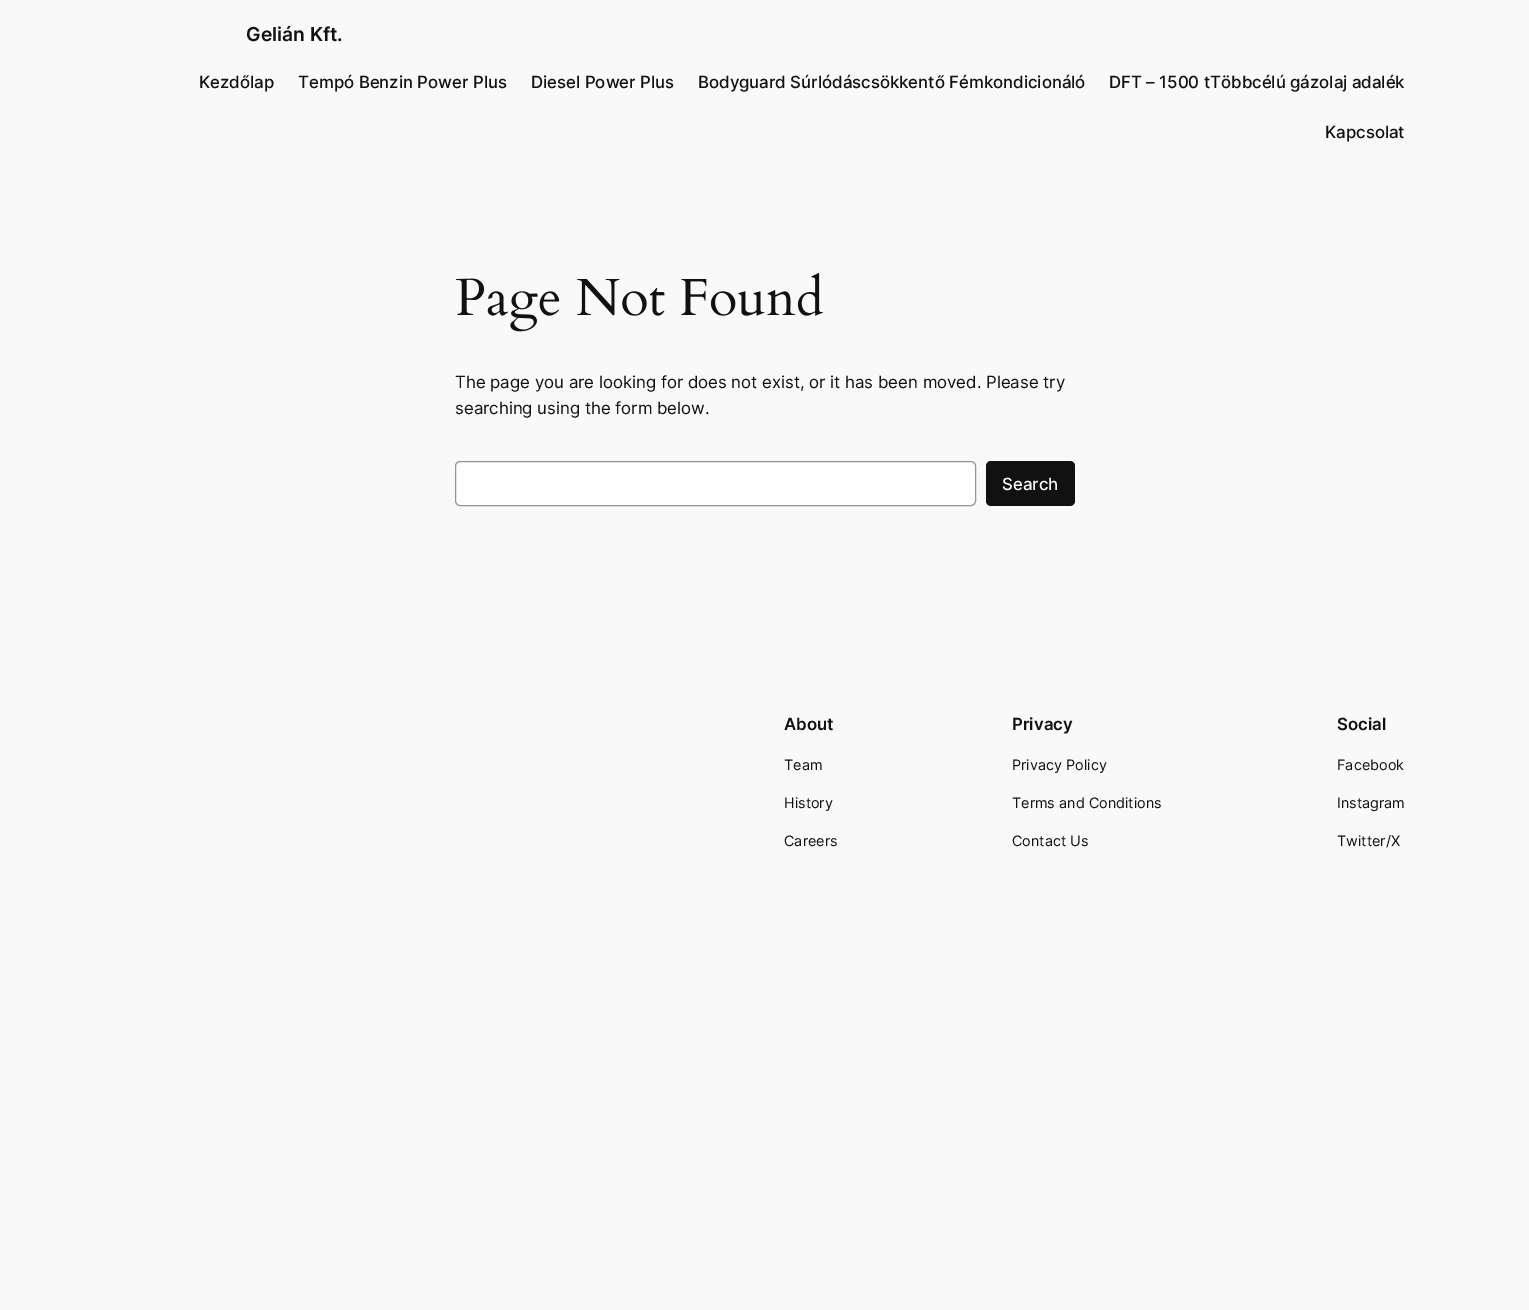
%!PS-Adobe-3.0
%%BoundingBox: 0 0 1529 1310
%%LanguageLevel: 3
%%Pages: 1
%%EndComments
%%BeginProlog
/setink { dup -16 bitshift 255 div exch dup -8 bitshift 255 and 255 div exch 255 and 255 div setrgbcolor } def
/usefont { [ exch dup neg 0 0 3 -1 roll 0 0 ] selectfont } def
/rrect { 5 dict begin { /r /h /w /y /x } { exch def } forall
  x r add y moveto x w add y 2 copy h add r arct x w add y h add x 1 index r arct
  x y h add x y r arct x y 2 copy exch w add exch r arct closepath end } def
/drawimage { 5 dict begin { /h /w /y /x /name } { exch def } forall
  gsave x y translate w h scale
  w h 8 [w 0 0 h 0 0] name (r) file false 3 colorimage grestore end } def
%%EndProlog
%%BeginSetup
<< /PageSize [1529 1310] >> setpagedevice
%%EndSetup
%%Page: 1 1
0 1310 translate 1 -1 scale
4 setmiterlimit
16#F9F9F9 setink
0 0 1529 1310 rectfill
/Inter-SemiBold 19.25 usefont
16#111111 setink
246 41 moveto (Gelián Kft.) show
/Inter-Medium 16.8 usefont
[
    [(Kezdőlap) 199 88]
    [(Tempó Benzin Power Plus) 298 88]
    [(Diesel Power Plus) 531 88]
    [(Bodyguard Súrlódáscsökkentő Fémkondicionáló) 698 88]
    [(DFT – 1500 tTöbbcélú gázolaj adalék) 1109 88]
    [(Kapcsolat) 1325 138]
] { aload pop moveto show } forall
(img1.raw) 456 273 367 59 drawimage
/Inter-Regular 16.8 usefont
455 388 moveto (The page you are looking for does not exist, or it has been moved. Please try) show
455 414 moveto (searching using the form below.) show
16#FFFFFF setink
455.5 461.5 520 44 4.5 rrect gsave fill grestore
16#949494 setink
stroke
16#111111 setink
986 461 89 45 5 rrect fill
/Inter-Medium 16.8 usefont
16#F9F9F9 setink
1002 490 moveto (Search) show
/Inter-SemiBold 16.8 usefont
16#111111 setink
784 730 moveto (About) show
/Inter-Regular 14.4 usefont
[
    [(Team) 784 770]
    [(History) 784 808]
    [(Careers) 784 846]
] { aload pop moveto show } forall
/Inter-SemiBold 16.8 usefont
1012 730 moveto (Privacy) show
/Inter-Regular 14.4 usefont
[
    [(Privacy Policy) 1012 770]
    [(Terms and Conditions) 1012 808]
    [(Contact Us) 1012 846]
] { aload pop moveto show } forall
/Inter-SemiBold 16.8 usefont
1337 730 moveto (Social) show
/Inter-Regular 14.4 usefont
[
    [(Facebook) 1337 770]
    [(Instagram) 1337 808]
    [(Twitter/X) 1337 846]
] { aload pop moveto show } forall
showpage
%%EOF
